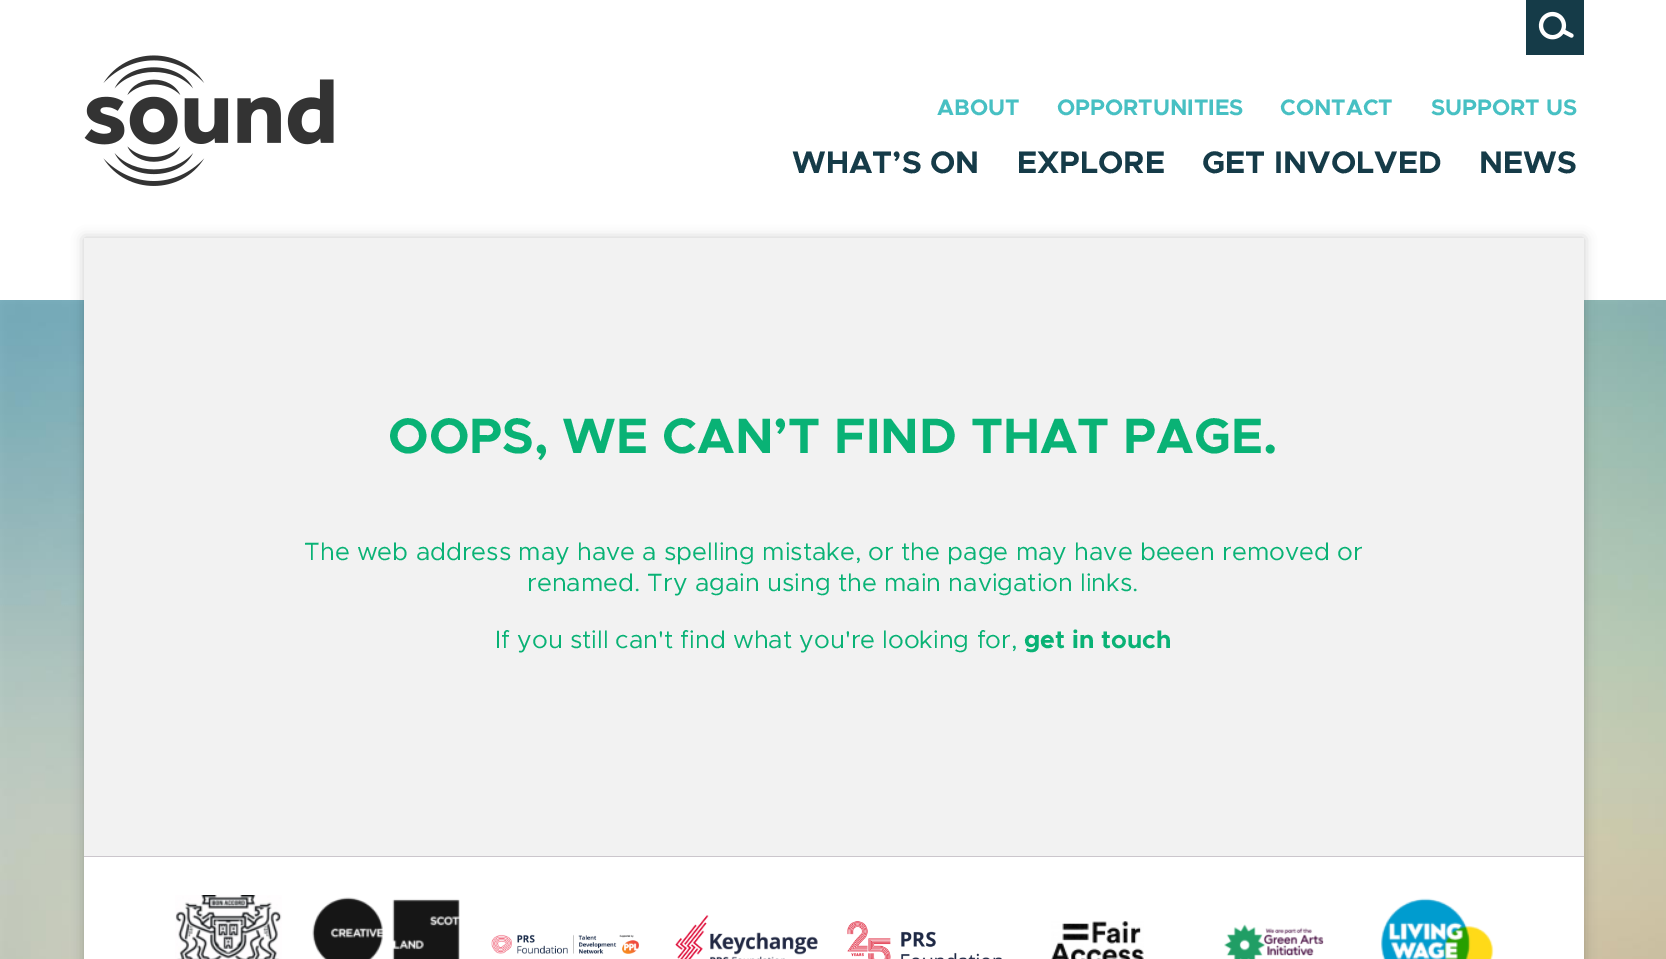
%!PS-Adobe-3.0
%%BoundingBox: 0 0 1666 959
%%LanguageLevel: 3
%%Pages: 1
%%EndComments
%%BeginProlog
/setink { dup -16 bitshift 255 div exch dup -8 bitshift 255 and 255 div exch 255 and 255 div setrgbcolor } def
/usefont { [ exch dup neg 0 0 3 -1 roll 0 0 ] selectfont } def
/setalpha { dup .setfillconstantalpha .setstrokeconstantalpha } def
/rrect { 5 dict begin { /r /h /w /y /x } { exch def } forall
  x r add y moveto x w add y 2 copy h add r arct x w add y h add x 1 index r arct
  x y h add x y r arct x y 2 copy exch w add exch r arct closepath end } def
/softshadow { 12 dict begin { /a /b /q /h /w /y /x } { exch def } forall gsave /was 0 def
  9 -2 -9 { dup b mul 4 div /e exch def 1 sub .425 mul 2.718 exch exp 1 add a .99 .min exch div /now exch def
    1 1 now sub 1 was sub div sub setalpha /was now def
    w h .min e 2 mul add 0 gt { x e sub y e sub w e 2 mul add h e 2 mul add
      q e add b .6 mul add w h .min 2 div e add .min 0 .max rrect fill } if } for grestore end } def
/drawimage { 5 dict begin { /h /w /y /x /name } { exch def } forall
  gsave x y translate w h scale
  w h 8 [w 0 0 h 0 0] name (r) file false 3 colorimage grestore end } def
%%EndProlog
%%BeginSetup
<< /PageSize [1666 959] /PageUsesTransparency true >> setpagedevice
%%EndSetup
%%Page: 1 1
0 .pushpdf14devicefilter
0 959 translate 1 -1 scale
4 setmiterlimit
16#FFFFFF setink
0 0 1666 959 rectfill
(img1.raw) 84 55 250 131 drawimage
16#153B48 setink
1526 0 58 55 rectfill
(img2.raw) 1538 11 36 29 drawimage
/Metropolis-Bold 22.5 usefont
16#47C0C3 setink
[
    [(ABOUT) 937 115]
    [(OPPORTUNITIES) 1057 115]
    [(CONTACT) 1280 115]
    [(SUPPORT US) 1431 115]
] { aload pop moveto show } forall
/Metropolis-Bold 31.25 usefont
16#153B48 setink
[
    [(WHAT’S ON) 792 173]
    [(EXPLORE) 1017 173]
    [(GET INVOLVED) 1202 173]
    [(NEWS) 1479 173]
] { aload pop moveto show } forall
(img3.raw) 0 300 1666 659 drawimage
16#000000 setink
84 238 1500 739 0 6 0.2 softshadow
16#F2F2F2 setink
84 238 1500 618 rectfill
/Metropolis-Bold 50 usefont
16#09B275 setink
388 453 moveto (OOPS, WE CAN’T FIND THAT PAGE.) show
/Metropolis-Regular 25 usefont
[
    [(The web address may have a spelling mistake, or the page may have beeen removed or) 304 560]
    [(renamed. Try again using the main navigation links.) 527 591]
    [(If you still can't find what you're looking for,) 495 648]
] { aload pop moveto show } forall
/Metropolis-Bold 25 usefont
1024 648 moveto (get in touch) show
16#FFFFFF setink
84 857 1500 102 rectfill
16#CBC6CC setink
84 856 1500 1 rectfill
(img4.raw) 175 895 107 64 drawimage
(img5.raw) 312 897 148 62 drawimage
(img6.raw) 491 934 148 20 drawimage
(img7.raw) 675 915 143 44 drawimage
(img8.raw) 847 921 155 38 drawimage
(img9.raw) 1051 921 93 38 drawimage
(img10.raw) 1224 924 100 35 drawimage
(img11.raw) 1381 898 113 61 drawimage
.poppdf14devicefilter showpage
%%EOF
